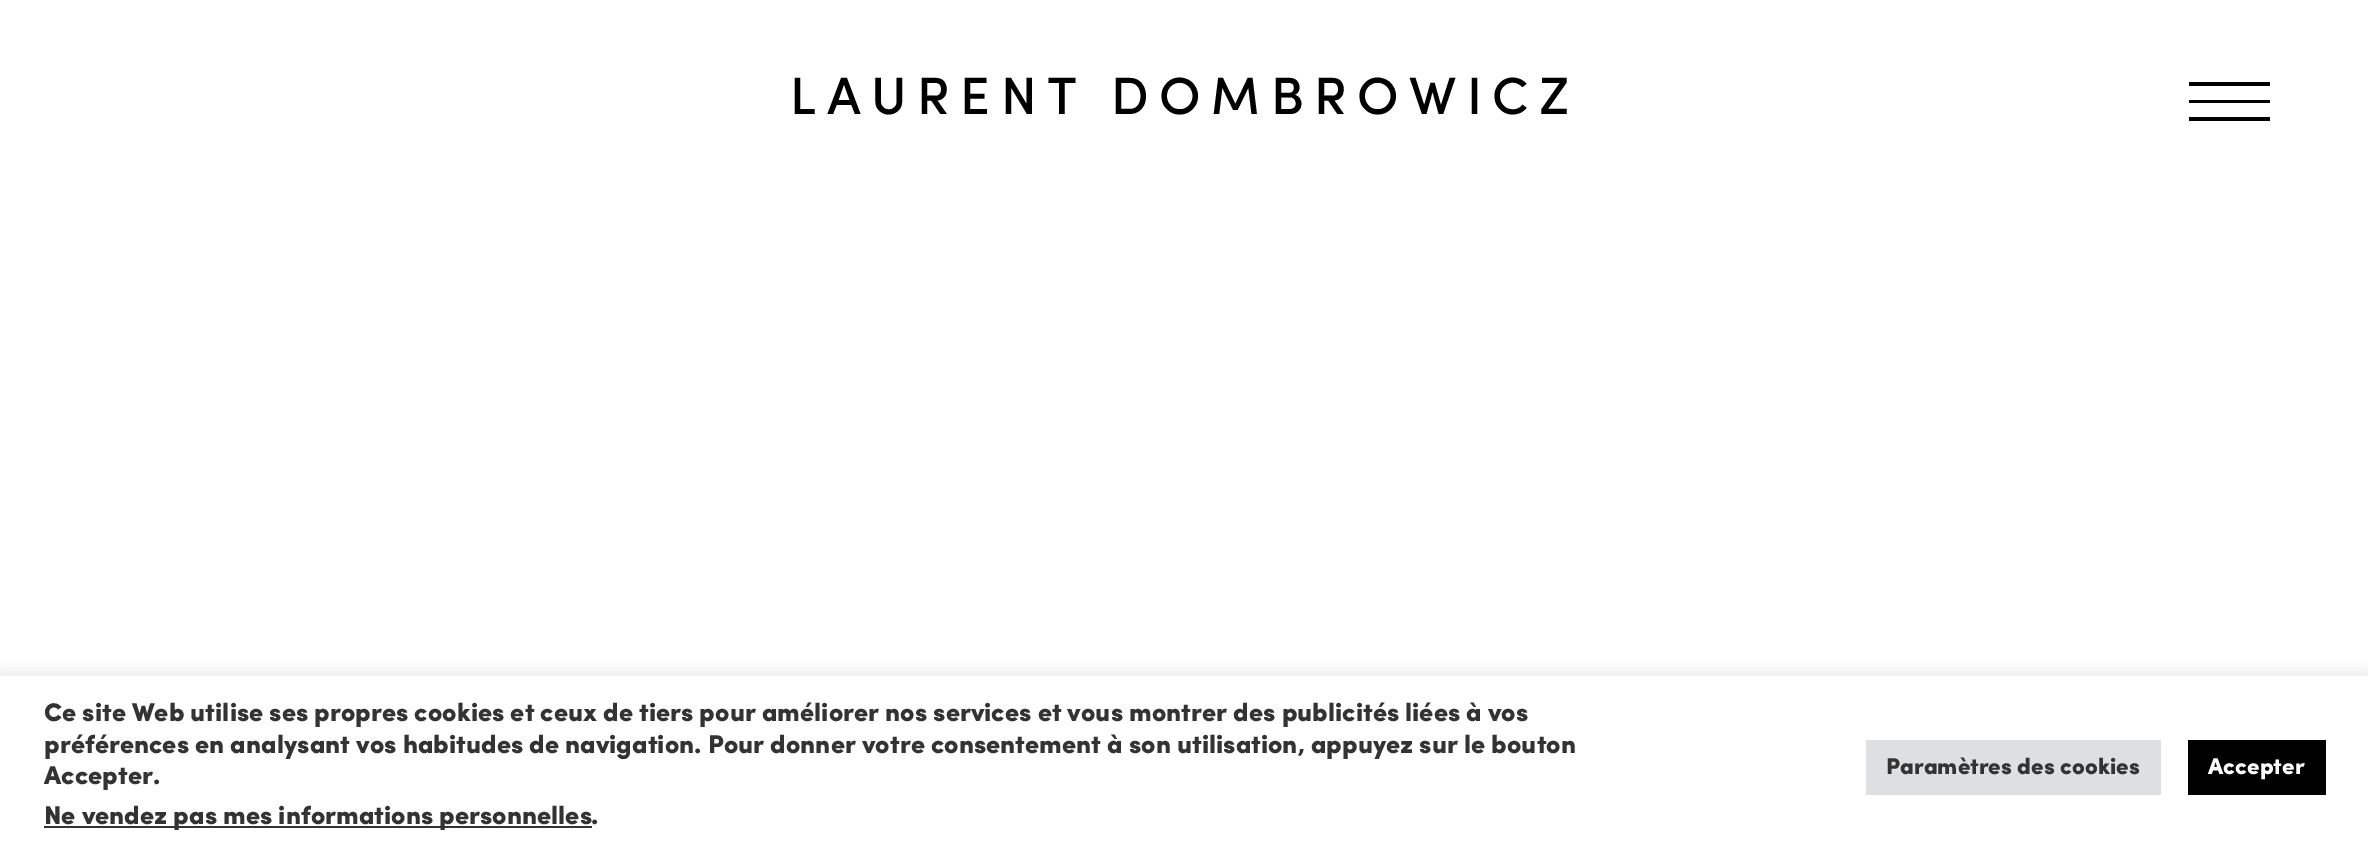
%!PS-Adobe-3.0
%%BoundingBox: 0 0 2368 859
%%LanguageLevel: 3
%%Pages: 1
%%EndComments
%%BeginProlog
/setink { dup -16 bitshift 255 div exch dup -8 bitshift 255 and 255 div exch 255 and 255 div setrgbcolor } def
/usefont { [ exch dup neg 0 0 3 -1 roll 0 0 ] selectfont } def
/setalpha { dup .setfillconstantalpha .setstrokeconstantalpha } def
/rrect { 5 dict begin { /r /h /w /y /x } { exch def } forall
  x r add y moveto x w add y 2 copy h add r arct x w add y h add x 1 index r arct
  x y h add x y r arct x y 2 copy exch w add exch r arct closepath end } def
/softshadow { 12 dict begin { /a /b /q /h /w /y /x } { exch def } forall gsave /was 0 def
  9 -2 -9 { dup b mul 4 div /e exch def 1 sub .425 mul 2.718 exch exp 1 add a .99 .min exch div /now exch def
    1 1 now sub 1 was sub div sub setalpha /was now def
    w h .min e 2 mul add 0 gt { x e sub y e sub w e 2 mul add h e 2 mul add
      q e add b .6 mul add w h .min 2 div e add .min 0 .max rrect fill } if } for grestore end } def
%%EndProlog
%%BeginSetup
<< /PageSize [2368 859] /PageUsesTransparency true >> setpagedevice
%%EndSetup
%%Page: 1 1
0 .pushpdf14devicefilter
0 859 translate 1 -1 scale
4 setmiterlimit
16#FFFFFF setink
0 0 2368 859 rectfill
/Sofia-Medium 52.5 usefont
16#000000 setink
790 114 moveto 10.5 0 (LAURENT DOMBROWICZ) ashow
[
    [2189 100 81 3 16#000000]
    [2189 82 81 4 16#000000]
    [2189 117 81 4 16#000000]
] { aload pop setink rectfill } forall
gsave
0 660 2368 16 rectclip
16#ACABAB setink
0 674 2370 184 0 9 0.3 softshadow
grestore
/Sofia-Black 25.67 usefont
16#333333 setink
[
    [(Ce site Web utilise ses propres cookies et ceux de tiers pour améliorer nos services et vous montrer des publicités liées à vos) 44 721]
    [(préférences en analysant vos habitudes de navigation. Pour donner votre consentement à son utilisation, appuyez sur le bouton) 44 753]
    [(Accepter.) 44 784]
] { aload pop moveto show } forall
44 826 548 2 rectfill
44 824 moveto (Ne vendez pas mes informations personnelles) show
591 824 moveto (.) show
16#DEDFE0 setink
1866 740 295 55 rectfill
/Sofia-Black 22.75 usefont
16#333333 setink
1886 774 moveto (Paramètres des cookies) show
16#000000 setink
2188 740 138 55 rectfill
16#FFFFFF setink
2208 774 moveto (Accepter) show
.poppdf14devicefilter showpage
%%EOF
